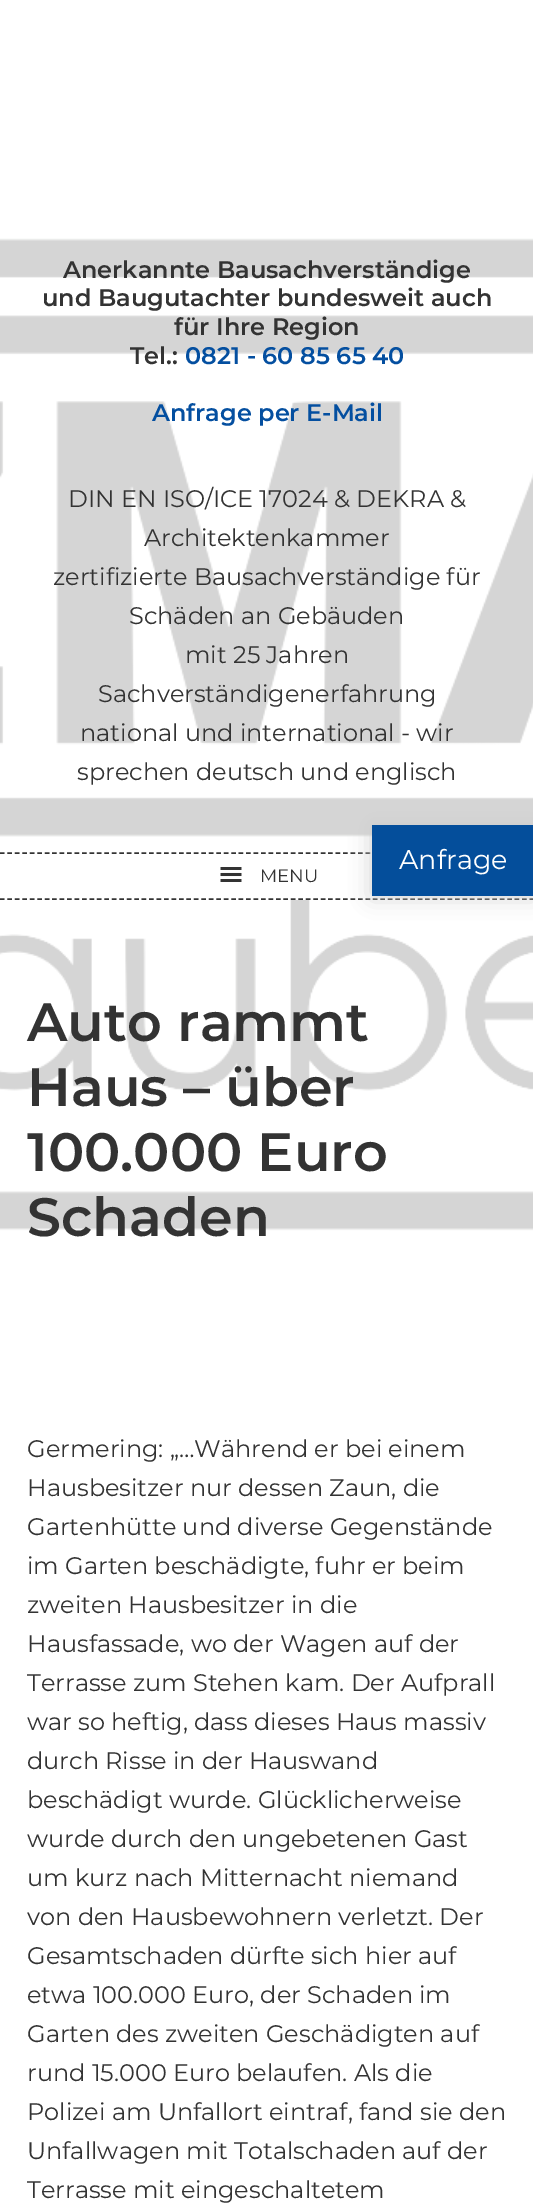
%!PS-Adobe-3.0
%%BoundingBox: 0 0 533 2205
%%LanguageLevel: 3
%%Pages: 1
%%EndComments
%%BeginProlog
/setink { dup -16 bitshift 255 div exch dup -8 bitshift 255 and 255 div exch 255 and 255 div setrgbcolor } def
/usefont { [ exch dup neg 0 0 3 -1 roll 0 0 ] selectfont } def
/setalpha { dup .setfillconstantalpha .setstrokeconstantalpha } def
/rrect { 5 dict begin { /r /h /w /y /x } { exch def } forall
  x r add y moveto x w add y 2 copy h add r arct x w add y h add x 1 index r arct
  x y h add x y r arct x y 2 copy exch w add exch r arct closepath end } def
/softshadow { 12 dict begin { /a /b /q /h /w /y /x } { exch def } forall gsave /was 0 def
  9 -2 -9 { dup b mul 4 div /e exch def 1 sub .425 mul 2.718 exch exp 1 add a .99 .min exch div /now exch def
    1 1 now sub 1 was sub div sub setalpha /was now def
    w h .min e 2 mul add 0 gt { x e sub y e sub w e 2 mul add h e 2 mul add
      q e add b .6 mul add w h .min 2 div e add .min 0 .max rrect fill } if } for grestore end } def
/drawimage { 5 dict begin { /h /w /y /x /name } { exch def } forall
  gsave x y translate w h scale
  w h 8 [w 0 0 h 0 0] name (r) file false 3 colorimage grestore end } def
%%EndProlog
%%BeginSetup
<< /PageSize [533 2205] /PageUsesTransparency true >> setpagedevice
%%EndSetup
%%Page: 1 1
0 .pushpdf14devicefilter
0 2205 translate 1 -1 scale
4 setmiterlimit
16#FFFFFF setink
0 0 533 2205 rectfill
(img1.raw) 0 238 533 993 drawimage
/Montserrat-SemiBold 24 usefont
16#333333 setink
[
    [(Anerkannte Bausachverständige) 63 278]
    [(und Baugutachter bundesweit auch) 42 306]
    [(für Ihre Region) 174 335]
    [(Tel.:) 130 364]
] { aload pop moveto show } forall
16#044FA0 setink
185 364 moveto (0821 - 60 85 65 40) show
152 421 moveto (Anfrage per E-Mail) show
/Montserrat-Regular 24 usefont
16#333333 setink
[
    [(DIN EN ISO/ICE 17024 & DEKRA &) 68 507]
    [(Architektenkammer) 144 546]
    [(zertifizierte Bausachverständige für) 53 585]
    [(Schäden an Gebäuden) 129 624]
    [(mit 25 Jahren) 185 663]
    [(Sachverständigenerfahrung) 98 702]
    [(national und international - wir) 80 741]
    [(sprechen deutsch und englisch) 77 780]
] { aload pop moveto show } forall
16#FFFFFF setink
290 886 20 14 rectfill
16#333333 setink
1.5 setlinewidth
[4.5 2.96] 0 setdash
0 853 moveto 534 853 lineto stroke
0 899 moveto 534 899 lineto stroke
(img2.raw) 220 867 22 15 drawimage
/Montserrat-Regular 18 usefont
260 882 moveto (MENU) show
/Montserrat-SemiBold 54 usefont
[
    [(Auto rammt) 27 1041]
    [(Haus – über) 27 1106]
    [(100.000 Euro) 27 1171]
    [(Schaden) 27 1236]
] { aload pop moveto show } forall
/Montserrat-Regular 24 usefont
[
    [(Germering: „…Während er bei einem) 27 1457]
    [(Hausbesitzer nur dessen Zaun, die) 27 1496]
    [(Gartenhütte und diverse Gegenstände) 27 1535]
    [(im Garten beschädigte, fuhr er beim) 27 1574]
    [(zweiten Hausbesitzer in die) 27 1613]
    [(Hausfassade, wo der Wagen auf der) 27 1652]
    [(Terrasse zum Stehen kam. Der Aufprall) 27 1691]
    [(war so heftig, dass dieses Haus massiv) 27 1730]
    [(durch Risse in der Hauswand) 27 1769]
    [(beschädigt wurde. Glücklicherweise) 27 1808]
    [(wurde durch den ungebetenen Gast) 27 1847]
    [(um kurz nach Mitternacht niemand) 27 1886]
    [(von den Hausbewohnern verletzt. Der) 27 1925]
    [(Gesamtschaden dürfte sich hier auf) 27 1964]
    [(etwa 100.000 Euro, der Schaden im) 27 2003]
    [(Garten des zweiten Geschädigten auf) 27 2042]
    [(rund 15.000 Euro belaufen. Als die) 27 2081]
    [(Polizei am Unfallort eintraf, fand sie den) 27 2120]
    [(Unfallwagen mit Totalschaden auf der) 27 2159]
    [(Terrasse mit eingeschaltetem) 27 2198]
] { aload pop moveto show } forall
16#CCCCCC setink
372 825 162 71 0 11 1 softshadow
16#044E9B setink
372 825 161 71 rectfill
/Montserrat-Regular 27 usefont
16#FFFFFF setink
399 869 moveto (Anfrage) show
.poppdf14devicefilter showpage
%%EOF
